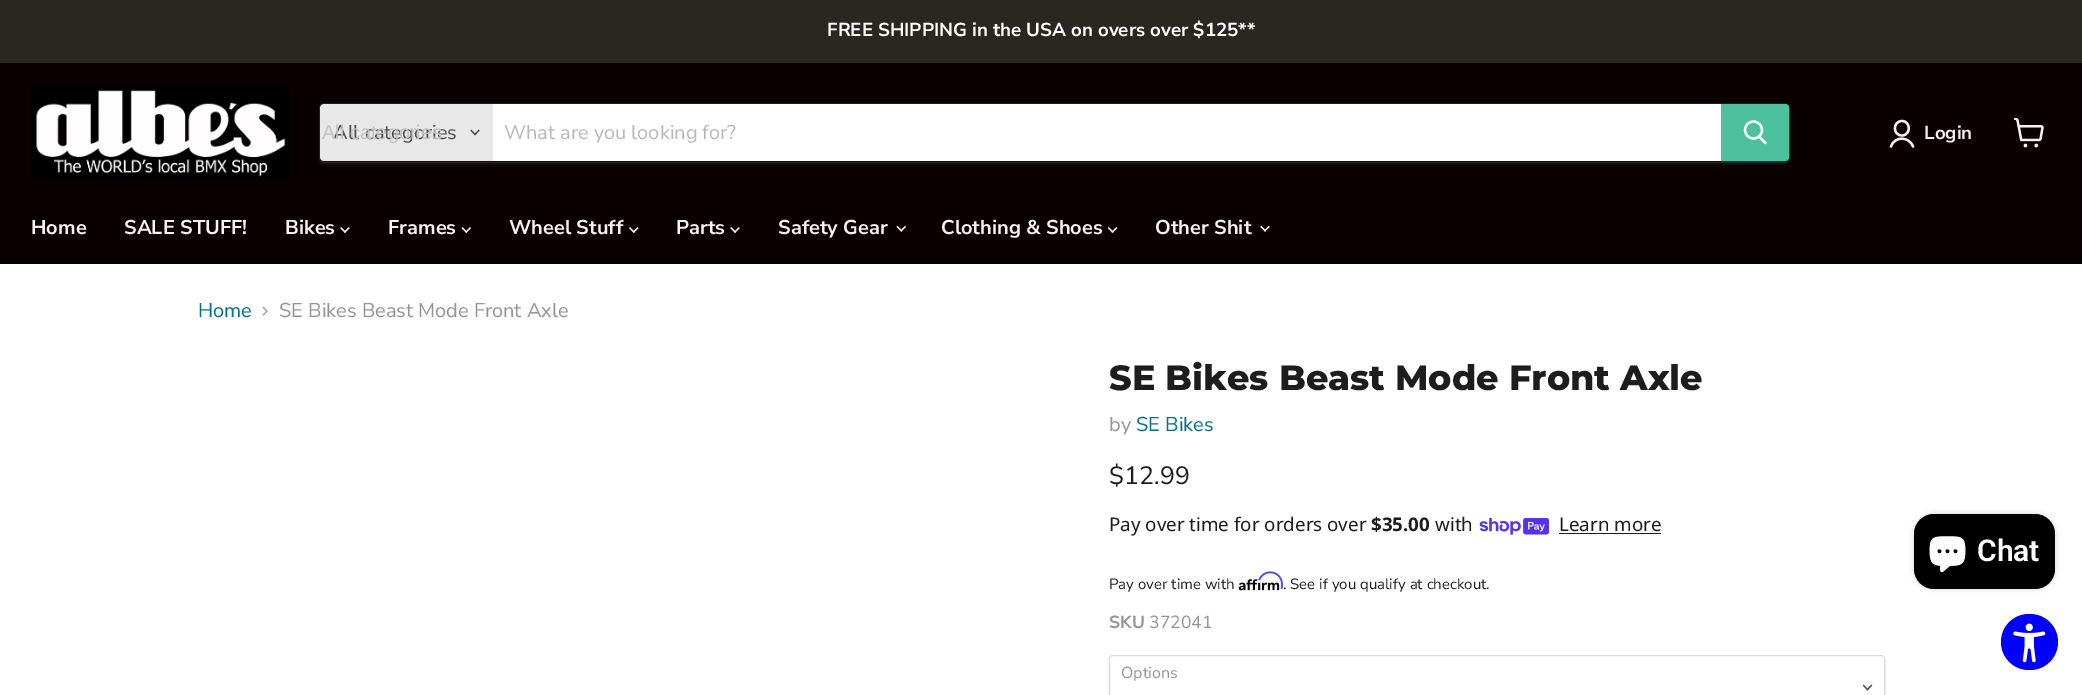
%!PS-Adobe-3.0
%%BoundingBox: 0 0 2082 695
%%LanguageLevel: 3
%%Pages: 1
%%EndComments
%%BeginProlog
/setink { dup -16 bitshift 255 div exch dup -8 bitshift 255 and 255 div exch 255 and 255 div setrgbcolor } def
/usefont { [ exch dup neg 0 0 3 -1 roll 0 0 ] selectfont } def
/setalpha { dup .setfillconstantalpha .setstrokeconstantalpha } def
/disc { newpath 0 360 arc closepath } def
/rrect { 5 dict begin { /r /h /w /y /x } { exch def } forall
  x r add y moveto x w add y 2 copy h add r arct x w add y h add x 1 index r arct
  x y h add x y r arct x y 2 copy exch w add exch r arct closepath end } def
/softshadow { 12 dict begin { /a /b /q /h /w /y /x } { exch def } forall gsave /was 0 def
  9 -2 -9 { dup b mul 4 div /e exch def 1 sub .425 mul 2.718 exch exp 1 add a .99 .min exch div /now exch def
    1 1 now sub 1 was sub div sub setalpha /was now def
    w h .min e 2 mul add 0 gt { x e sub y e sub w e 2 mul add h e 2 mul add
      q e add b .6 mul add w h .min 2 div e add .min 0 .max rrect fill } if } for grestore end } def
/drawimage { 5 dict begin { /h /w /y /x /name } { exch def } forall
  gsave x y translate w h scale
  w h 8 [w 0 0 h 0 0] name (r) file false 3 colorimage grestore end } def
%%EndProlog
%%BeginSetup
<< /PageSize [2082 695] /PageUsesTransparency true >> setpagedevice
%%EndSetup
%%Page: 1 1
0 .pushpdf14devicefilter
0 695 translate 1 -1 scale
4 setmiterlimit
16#FFFFFF setink
0 0 2082 695 rectfill
16#292722 setink
0 0 2082 63 rectfill
/NunitoSans-Bold 18.75 usefont
16#FFFFFF setink
827 36 moveto (FREE SHIPPING in the USA on overs over $125**) show
16#0A0000 setink
0 63 2082 201 rectfill
(img1.raw) 31 87 258 92 drawimage
16#808080 setink
319 105 1471 60 5 2 0.11 softshadow
0.2 setalpha
319.5 103.5 1470 59 4.5 rrect stroke
1 setalpha
16#E8E8E8 setink
324 104 moveto 493 104 lineto 493 161 lineto 324 161 lineto 322 161 320 159 320 157 curveto 320 108 lineto 320 106 322 104 324 104 curveto closepath fill
/NunitoSans-Regular 20 usefont
16#4D4D4D setink
333 139 moveto (All categories) show
/LiberationSans-Regular 20 usefont
16#C2C2C2 setink
322 139 moveto (All categories) show
(img2.raw) 470 129 10 7 drawimage
16#FFFFFF setink
493 104 1228 57 rectfill
/NunitoSans-Regular 20 usefont
16#B8B8B8 setink
504 139 moveto (What are you looking for?) show
16#4DC19D setink
1721.5 104.5 moveto 1785 104.5 lineto 1787 104.5 1788.5 106 1788.5 108 curveto 1788.5 157 lineto 1788.5 159 1787 160.5 1785 160.5 curveto 1721.5 160.5 lineto closepath gsave fill grestore
stroke
16#FFFFFF setink
2.2 setlinewidth
1 setlinecap
1765.5 143 moveto 1759.5 137 lineto stroke
0 setlinecap
1753.5 130 8.5 disc stroke
16#FAF2F2 setink
2.3 setlinewidth
1 setlinecap
1 setlinejoin
1902 135.5 moveto 1911 135.5 1911 121 1902 121 curveto 1892.5 121 1892.5 135.5 1902 135.5 curveto closepath 1913 146.5 moveto 1909 136 1894.5 136 1891 146.5 curveto stroke
/NunitoSans-Bold 18.75 usefont
1924 139 moveto (Login) show
(img3.raw) 2014 118 30 30 drawimage
/NunitoSans-Bold 20 usefont
[
    [(Home) 31 234]
    [(SALE STUFF!) 124 234]
    [(Bikes) 285 234]
] { aload pop moveto show } forall
(img4.raw) 340 227 10 6 drawimage
388 234 moveto (Frames) show
(img5.raw) 461 227 10 6 drawimage
509 234 moveto (Wheel Stuff) show
(img6.raw) 629 227 10 6 drawimage
676 234 moveto (Parts) show
(img4.raw) 730 227 10 6 drawimage
778 234 moveto (Safety Gear) show
(img7.raw) 896 225 10 7 drawimage
941 234 moveto (Clothing & Shoes) show
(img8.raw) 1108 227 10 6 drawimage
1155 234 moveto (Other Shit) show
(img9.raw) 1260 225 10 7 drawimage
/NunitoSans-Regular 20 usefont
16#046E82 setink
198 317 moveto (Home) show
(img10.raw) 262 306 6 10 drawimage
16#949494 setink
279 317 moveto (SE Bikes Beast Mode Front Axle) show
/Montserrat-ExtraBold 35 usefont
16#1D1D1D setink
1109 390 moveto (SE Bikes Beast Mode Front Axle) show
/NunitoSans-Regular 20 usefont
16#949494 setink
1109 431 moveto (by) show
16#046E82 setink
1136 431 moveto (SE Bikes) show
/NunitoSans-Regular 25 usefont
16#1D1D1D setink
1109 484 moveto ($12.99) show
/NotoSans-Regular 18.75 usefont
1109 531 moveto (Pay over time for orders over) show
/NotoSans-Bold 18.75 usefont
1371 531 moveto ($35.00) show
/NotoSans-Regular 18.75 usefont
1435 531 moveto (with) show
(img11.raw) 1479 518 70 17 drawimage
1559 531 moveto (Learn more) show
1559 533 102 1 rectfill
/NunitoSans-Regular 15 usefont
1109 589 moveto (Pay over time with) show
(img13.raw) 1238 579 42 12 drawimage
(img12.raw) 1258 571 25 18 drawimage
1283 589 moveto (. See if you qualify at checkout.) show
/NunitoSans-Bold 17.5 usefont
16#949494 setink
1109 628 moveto (SKU) show
/NunitoSans-Regular 17.5 usefont
1149 628 moveto (372041) show
16#000000 setink
1109 656 776 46 4 1 0.15 softshadow
16#FFFFFF setink
1109.5 655.5 775 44 3.5 rrect gsave fill grestore
16#DDDDDD setink
1 setlinewidth
0 setlinecap
0 setlinejoin
stroke
(img14.raw) 1863 684 10 7 drawimage
/NunitoSans-Regular 16 usefont
16#949494 setink
1121 678 moveto (Options) show
16#000000 setink
1914 514 141 75 20 3 0.15 softshadow
1914 514 141 75 20 rrect fill
(img15.raw) 1929 536 37 37 drawimage
/Roboto-SemiBold 30 usefont
16#FFFFFF setink
1977 561 moveto (Chat) show
16#0000FF setink
2001 614 57 56 28 rrect fill
(img16.raw) 2013 623 33 40 drawimage
.poppdf14devicefilter showpage
%%EOF
